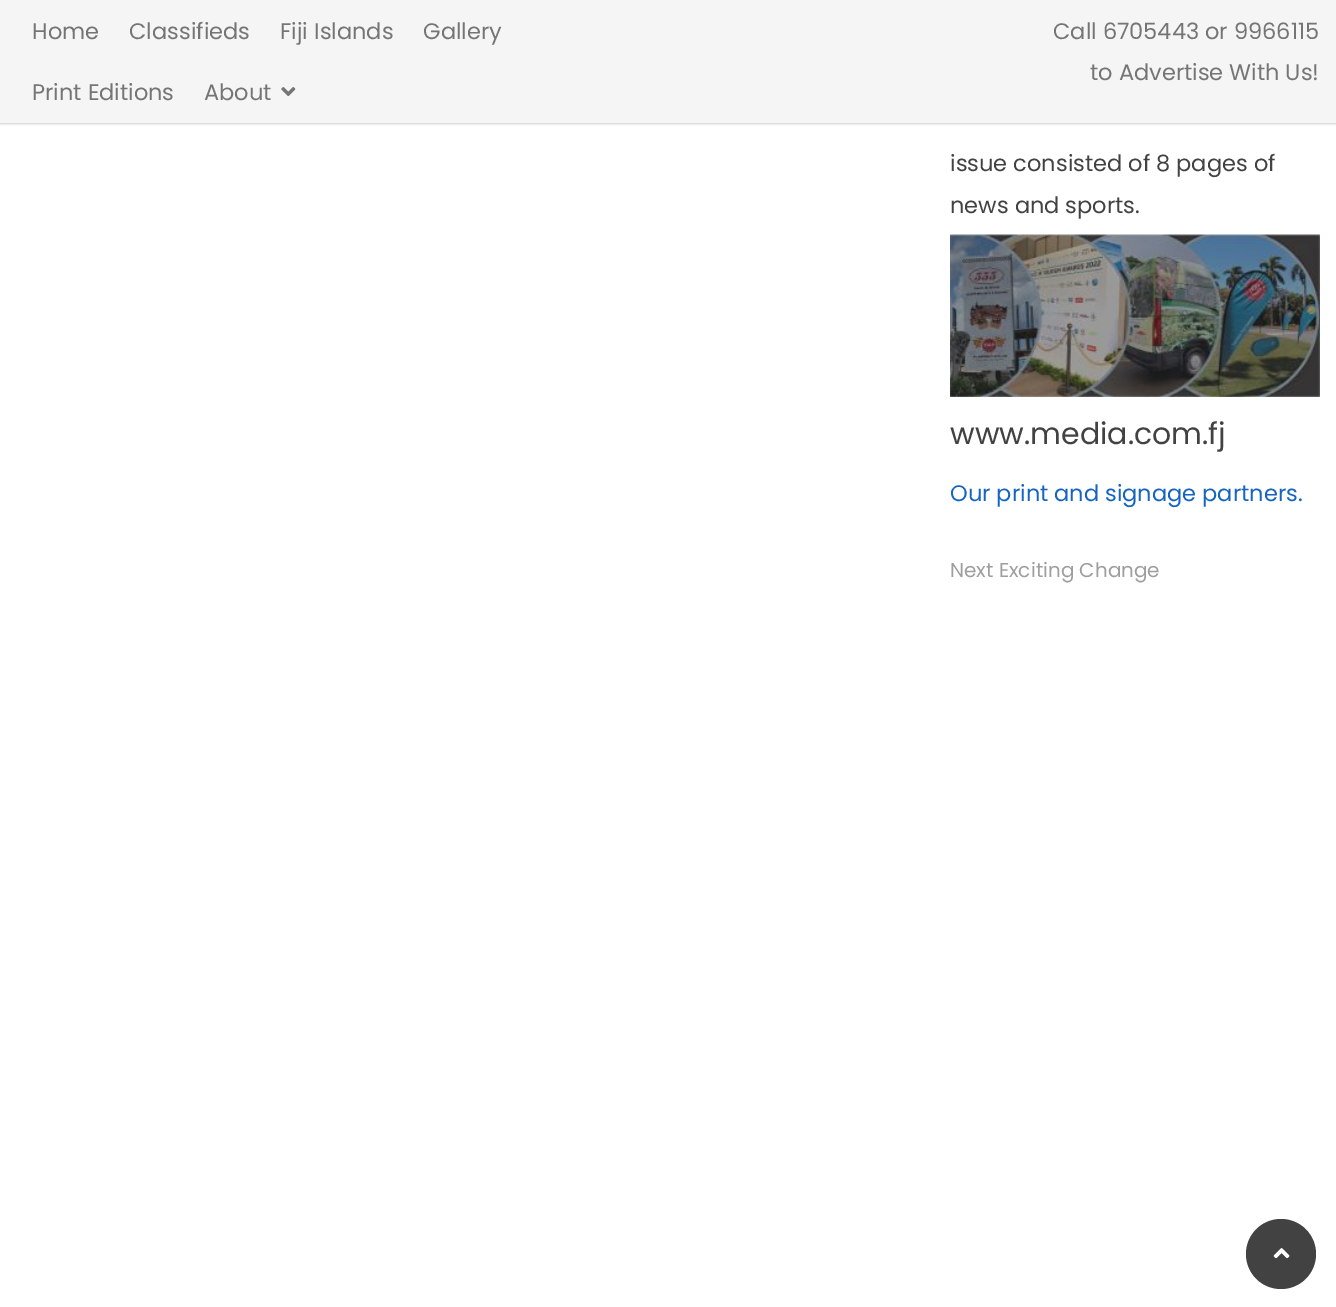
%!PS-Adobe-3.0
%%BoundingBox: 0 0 1336 1307
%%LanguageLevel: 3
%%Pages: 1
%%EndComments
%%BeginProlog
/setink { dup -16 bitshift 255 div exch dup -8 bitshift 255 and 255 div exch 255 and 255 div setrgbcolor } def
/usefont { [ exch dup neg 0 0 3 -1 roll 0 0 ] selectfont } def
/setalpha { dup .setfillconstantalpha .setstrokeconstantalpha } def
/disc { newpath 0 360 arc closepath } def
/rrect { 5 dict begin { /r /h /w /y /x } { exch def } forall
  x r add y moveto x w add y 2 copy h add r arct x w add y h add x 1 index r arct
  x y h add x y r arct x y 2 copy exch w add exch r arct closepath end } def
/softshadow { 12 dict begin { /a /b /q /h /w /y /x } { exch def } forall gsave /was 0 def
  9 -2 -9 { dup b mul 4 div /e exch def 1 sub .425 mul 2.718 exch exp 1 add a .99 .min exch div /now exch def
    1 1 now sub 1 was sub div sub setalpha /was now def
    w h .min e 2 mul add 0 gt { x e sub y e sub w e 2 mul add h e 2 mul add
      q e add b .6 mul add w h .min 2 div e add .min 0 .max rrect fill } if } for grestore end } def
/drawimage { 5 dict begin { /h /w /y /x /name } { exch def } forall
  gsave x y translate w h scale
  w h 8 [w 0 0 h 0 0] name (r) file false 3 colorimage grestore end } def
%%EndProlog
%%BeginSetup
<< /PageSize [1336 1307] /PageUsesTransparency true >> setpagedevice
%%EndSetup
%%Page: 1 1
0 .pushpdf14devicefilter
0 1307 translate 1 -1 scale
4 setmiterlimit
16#FFFFFF setink
0 0 1336 1307 rectfill
16#000000 setink
0 1 1336 123 0 1 0.2 softshadow
16#F5F5F5 setink
0 0 1336 123 rectfill
/Poppins-Regular 22.5 usefont
16#757575 setink
[
    [(Home) 32 39]
    [(Classifieds) 129 39]
    [(Fiji Islands) 280 39]
    [(Gallery) 423 39]
    [(Print Editions) 32 100]
    [(About) 204 100]
] { aload pop moveto show } forall
(img1.raw) 281 87 15 10 drawimage
1053 39 moveto (Call 6705443 or 9966115) show
1090 80 moveto (to Advertise With Us!) show
16#424242 setink
950 171 moveto (issue consisted of 8 pages of) show
950 213 moveto (news and sports.) show
(img2.raw) 950 234 370 163 drawimage
/Poppins-Regular 30 usefont
950 444 moveto (www.media.com.fj) show
/Poppins-Regular 22.5 usefont
16#1565C0 setink
950 501 moveto (Our print and signage partners.) show
/Poppins-Regular 20 usefont
16#9E9E9E setink
950 577 moveto (Next Exciting Change) show
16#424242 setink
1281 1254 35 disc fill
(img3.raw) 1273 1248 17 11 drawimage
.poppdf14devicefilter showpage
%%EOF
